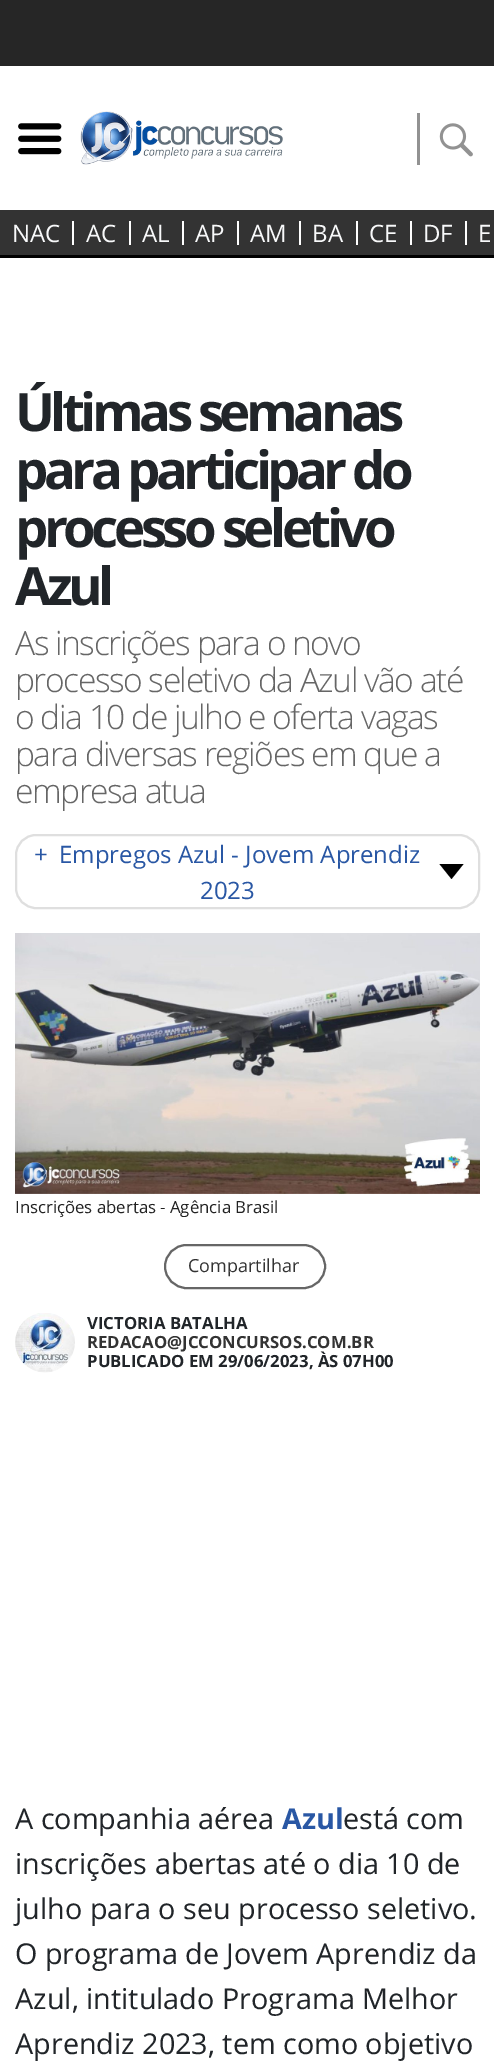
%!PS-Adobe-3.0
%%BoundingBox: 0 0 494 2062
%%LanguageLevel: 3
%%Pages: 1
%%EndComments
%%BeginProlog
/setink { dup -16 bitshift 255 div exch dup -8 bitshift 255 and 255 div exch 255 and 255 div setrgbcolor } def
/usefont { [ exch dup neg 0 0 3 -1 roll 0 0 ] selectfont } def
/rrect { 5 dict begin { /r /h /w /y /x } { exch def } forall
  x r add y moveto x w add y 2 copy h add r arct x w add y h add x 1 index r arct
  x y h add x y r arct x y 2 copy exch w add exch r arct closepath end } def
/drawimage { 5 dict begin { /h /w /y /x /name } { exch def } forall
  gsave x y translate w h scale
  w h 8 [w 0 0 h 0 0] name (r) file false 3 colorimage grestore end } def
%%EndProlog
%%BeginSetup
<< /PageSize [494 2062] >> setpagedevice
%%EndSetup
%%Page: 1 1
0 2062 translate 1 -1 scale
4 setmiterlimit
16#FFFFFF setink
0 0 494 2062 rectfill
16#262626 setink
0 0 494 66 rectfill
(img1.raw) 18 123 44 32 drawimage
(img2.raw) 80 111 203 54 drawimage
16#929292 setink
417 113 3 52 rectfill
(img3.raw) 439 123 34 34 drawimage
[
    [0 210 494 45 16#333333]
    [0 255 494 3 16#000000]
    [72 221 2 24 16#FFFFFF]
] { aload pop setink rectfill } forall
/OpenSans-Regular 24 usefont
16#F8F9FA setink
12 242 moveto (NAC) show
16#FFFFFF setink
129 221 2 24 rectfill
16#F8F9FA setink
86 242 moveto (AC) show
16#FFFFFF setink
182 221 2 24 rectfill
16#F8F9FA setink
142 242 moveto (AL) show
16#FFFFFF setink
237 221 2 24 rectfill
16#F8F9FA setink
195 242 moveto (AP) show
16#FFFFFF setink
299 221 2 24 rectfill
16#F8F9FA setink
250 242 moveto (AM) show
16#FFFFFF setink
356 221 2 24 rectfill
16#F8F9FA setink
312 242 moveto (BA) show
16#FFFFFF setink
410 221 2 24 rectfill
16#F8F9FA setink
369 242 moveto (CE) show
16#FFFFFF setink
465 221 2 24 rectfill
16#F8F9FA setink
423 242 moveto (DF) show
478 242 moveto (E) show
/OpenSans-Bold 52.75 usefont
16#212529 setink
15 431 moveto -4.5 0 (Últimas semanas) ashow
15 489 moveto -4.5 0 (para participar do) ashow
15 547 moveto -4.5 0 (processo seletivo) ashow
15 605 moveto -4.5 0 (Azul) ashow
/OpenSans-Light 33.6 usefont
16#666666 setink
15 655 moveto -1.5 0 (As inscrições para o novo) ashow
15 692 moveto -1.5 0 (processo seletivo da Azul vão até) ashow
15 729 moveto -1.5 0 (o dia 10 de julho e oferta vagas) ashow
15 766 moveto -1.5 0 (para diversas regiões em que a) ashow
15 803 moveto -1.5 0 (empresa atua) ashow
16#DFDFDF setink
2 setlinewidth
16 835 463 73 20 rrect stroke
/OpenSans-Regular 24 usefont
16#2957A4 setink
[
    [(+) 34 863]
    [(Empregos Azul - Jovem Aprendiz) 59 863]
    [(2023) 200 899]
] { aload pop moveto show } forall
16#000000 setink
439.5 864 moveto 463.5 864 lineto 451.5 879 lineto closepath fill
(img4.raw) 15 933 465 261 drawimage
/OpenSans-Regular 16.75 usefont
16#222222 setink
15 1213 moveto (Inscrições abertas - Agência Brasil) show
16#666666 setink
165 1245 160 43 21.5 rrect stroke
/OpenSans-Regular 18 usefont
16#333333 setink
188 1272 moveto (Compartilhar) show
(img5.raw) 15 1313 60 60 drawimage
/OpenSans-Bold 16.75 usefont
16#212529 setink
87 1329 moveto (VICTORIA BATALHA) show
16#333333 setink
87 1348 moveto (REDACAO@JCCONCURSOS.COM.BR) show
16#212529 setink
87 1367 moveto (PUBLICADO EM 29/06/2023, ÀS 07H00) show
/OpenSans-Regular 28.75 usefont
15 1829 moveto (A companhia aérea) show
/OpenSans-Bold 28.75 usefont
16#2957A4 setink
282 1829 moveto (Azul) show
/OpenSans-Regular 28.75 usefont
16#212529 setink
[
    [(está com) 343 1829]
    [(inscrições abertas até o dia 10 de) 15 1874]
    [(julho para o seu processo seletivo.) 15 1919]
    [(O programa de Jovem Aprendiz da) 15 1964]
    [(Azul, intitulado Programa Melhor) 15 2009]
    [(Aprendiz 2023, tem como objetivo) 15 2054]
] { aload pop moveto show } forall
showpage
%%EOF
